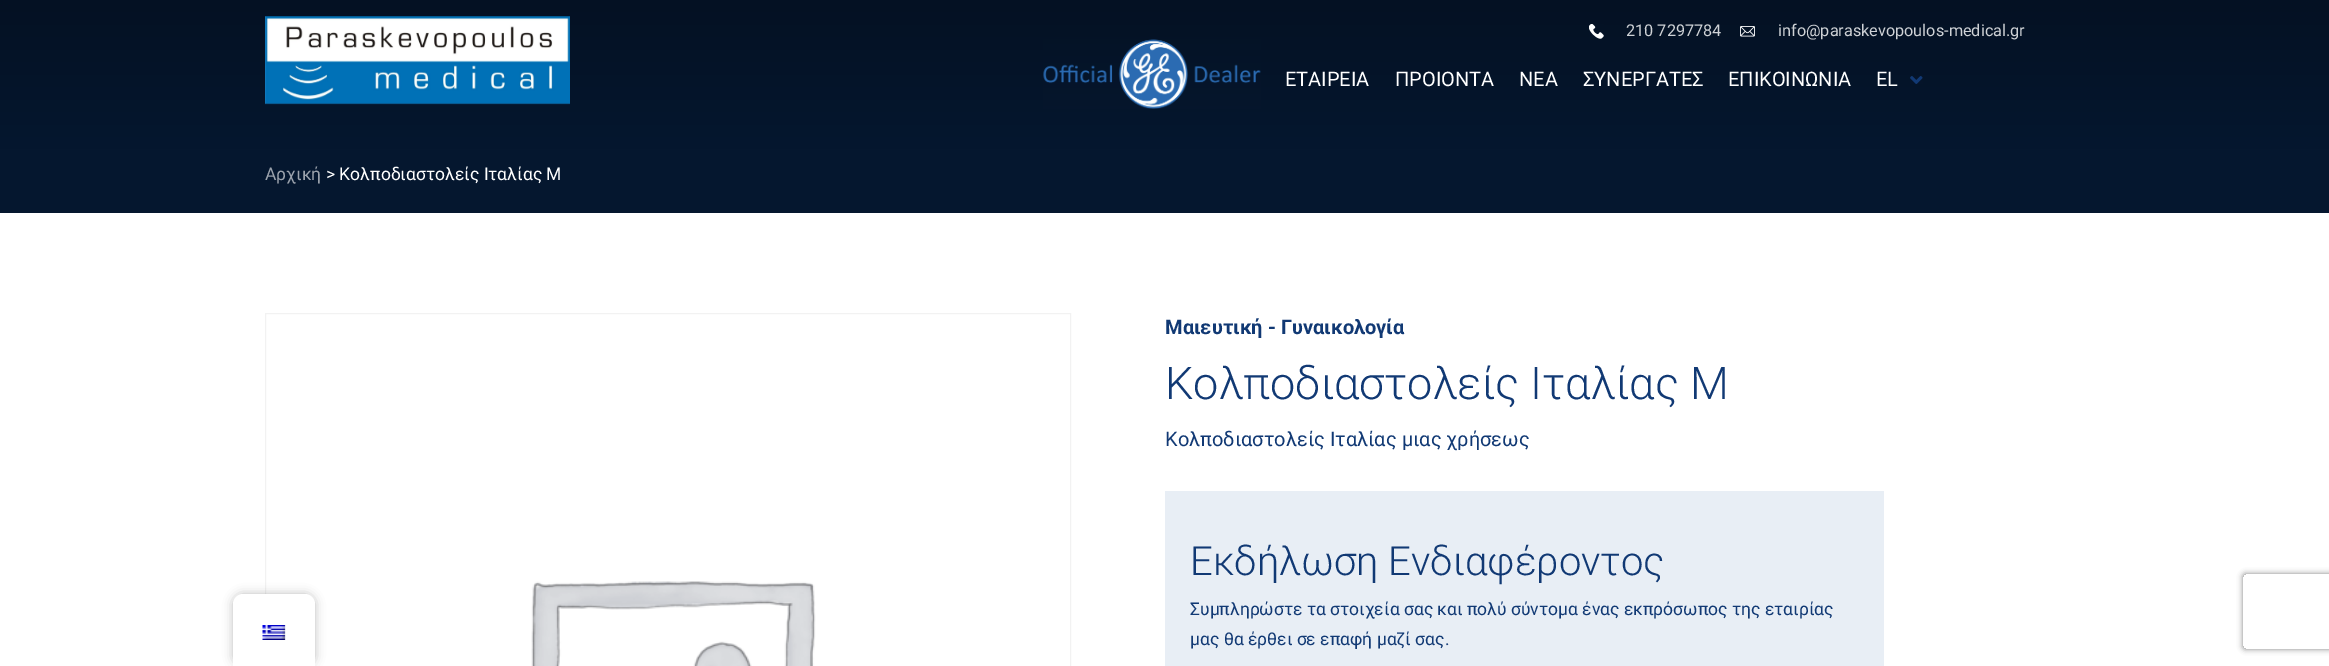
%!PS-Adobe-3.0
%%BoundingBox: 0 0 2329 666
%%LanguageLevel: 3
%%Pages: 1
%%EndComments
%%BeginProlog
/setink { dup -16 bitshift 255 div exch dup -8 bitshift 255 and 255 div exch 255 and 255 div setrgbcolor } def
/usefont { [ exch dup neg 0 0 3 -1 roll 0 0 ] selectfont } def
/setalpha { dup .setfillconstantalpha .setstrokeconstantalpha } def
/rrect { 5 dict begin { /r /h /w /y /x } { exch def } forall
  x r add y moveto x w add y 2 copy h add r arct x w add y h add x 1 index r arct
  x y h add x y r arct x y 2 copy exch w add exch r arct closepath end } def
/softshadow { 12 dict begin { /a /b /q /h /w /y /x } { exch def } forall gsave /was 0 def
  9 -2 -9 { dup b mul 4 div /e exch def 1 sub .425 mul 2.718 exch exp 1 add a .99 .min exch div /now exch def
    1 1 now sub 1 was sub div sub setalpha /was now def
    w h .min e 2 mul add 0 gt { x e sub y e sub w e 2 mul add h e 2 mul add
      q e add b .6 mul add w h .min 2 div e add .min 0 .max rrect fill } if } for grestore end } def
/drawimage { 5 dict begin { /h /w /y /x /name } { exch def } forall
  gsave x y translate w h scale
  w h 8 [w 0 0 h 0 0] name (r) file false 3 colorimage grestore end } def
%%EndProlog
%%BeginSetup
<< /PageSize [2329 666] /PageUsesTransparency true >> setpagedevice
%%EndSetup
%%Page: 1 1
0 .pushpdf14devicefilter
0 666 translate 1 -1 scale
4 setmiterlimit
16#FFFFFF setink
0 0 2329 666 rectfill
gsave 0 0 moveto 2329 0 lineto 2329 150 lineto 0 150 lineto closepath clip newpath
<< /ShadingType 2 /ColorSpace /DeviceRGB /Coords [1165 0 1165 150] /Extend [true true] /Function << /FunctionType 2 /Domain [0 1] /C0 [0.016 0.067 0.137] /C1 [0.02 0.09 0.184] /N 1 >> >> shfill grestore
(img1.raw) 265 16 305 89 drawimage
(img2.raw) 1043 39 218 70 drawimage
(img3.raw) 1589 24 15 15 drawimage
/Roboto-Regular 16.25 usefont
16#CFD2D6 setink
1626 36 moveto (210 7297784) show
(img4.raw) 1740 26 15 11 drawimage
1778 36 moveto (info@paraskevopoulos-medical.gr) show
/Roboto-Regular 20 usefont
16#FFFFFF setink
[
    [(ΕΤΑΙΡΕΙΑ) 1285 86]
    [(ΠΡΟΙΟΝΤΑ) 1395 86]
    [(ΝΕΑ) 1519 86]
    [(ΣΥΝΕΡΓΑΤΕΣ) 1583 86]
    [(ΕΠΙΚΟΙΝΩΝΙΑ) 1728 86]
    [(EL) 1876 86]
] { aload pop moveto show } forall
(img5.raw) 1910 76 13 8 drawimage
16#05172F setink
0 150 2329 63 rectfill
/Roboto-Regular 17.5 usefont
16#9BA2AC setink
265 180 moveto (Αρχική) show
16#FFFFFF setink
326 180 moveto (> Κολποδιαστολείς Ιταλίας Μ) show
16#F2F2F2 setink
265.5 313.5 805 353 rectstroke
(img6.raw) 531 581 285 85 drawimage
/Roboto-Bold 20 usefont
16#113974 setink
1165 334 moveto (Μαιευτική - Γυναικολογία) show
/Roboto-Light 45 usefont
1165 399 moveto (Κολποδιαστολείς Ιταλίας Μ) show
/Roboto-Regular 20 usefont
1165 446 moveto (Κολποδιαστολείς Ιταλίας μιας χρήσεως) show
16#E8EEF5 setink
1165 491 719 175 rectfill
/Roboto-Light 40 usefont
16#113974 setink
1190 575 moveto (Εκδήλωση Ενδιαφέροντος) show
gsave
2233 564 moveto 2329 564 lineto 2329 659 lineto 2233 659 lineto closepath 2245.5 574 moveto 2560.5 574 lineto 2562 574 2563 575 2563 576.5 curveto 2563 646.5 lineto 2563 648 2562 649 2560.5 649 curveto 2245.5 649 lineto 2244 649 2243 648 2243 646.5 curveto 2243 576.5 lineto 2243 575 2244 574 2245.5 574 curveto closepath eoclip newpath
16#808080 setink
2243 574 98 75 2.5 3 1 softshadow
grestore
/Roboto-Regular 17.5 usefont
1190 615 moveto (Συμπληρώστε τα στοιχεία σας και πολύ σύντομα ένας εκπρόσωπος της εταιρίας) show
1190 645 moveto (μας θα έρθει σε επαφή μαζί σας.) show
16#000000 setink
233 594 82 72 10 5 0.25 softshadow
16#FFFFFF setink
243 594 moveto 305 594 lineto 310.5 594 315 598.5 315 604 curveto 315 666 lineto 233 666 lineto 233 604 lineto 233 598.5 237.5 594 243 594 curveto closepath fill
(img7.raw) 262 625 24 15 drawimage
.poppdf14devicefilter showpage
%%EOF
